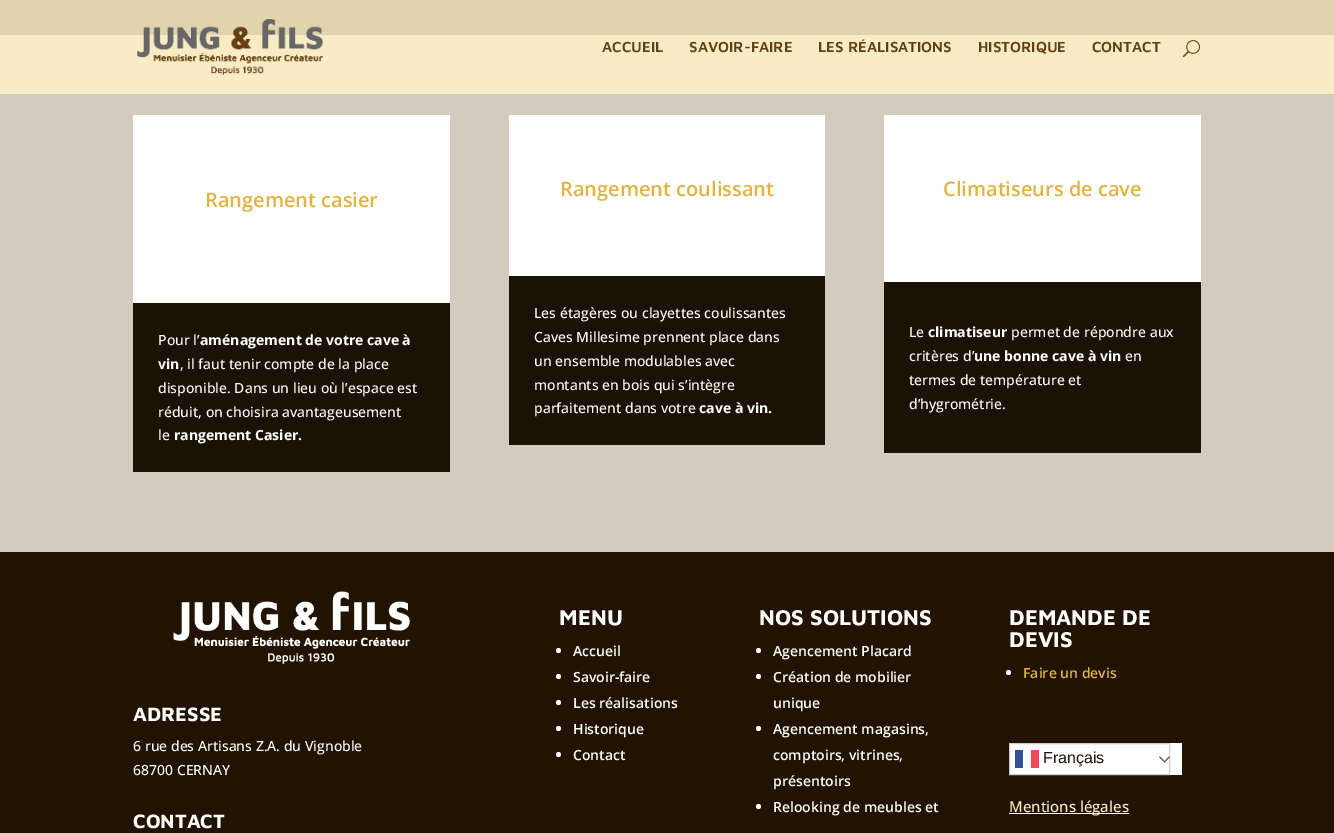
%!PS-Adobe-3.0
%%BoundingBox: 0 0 1334 833
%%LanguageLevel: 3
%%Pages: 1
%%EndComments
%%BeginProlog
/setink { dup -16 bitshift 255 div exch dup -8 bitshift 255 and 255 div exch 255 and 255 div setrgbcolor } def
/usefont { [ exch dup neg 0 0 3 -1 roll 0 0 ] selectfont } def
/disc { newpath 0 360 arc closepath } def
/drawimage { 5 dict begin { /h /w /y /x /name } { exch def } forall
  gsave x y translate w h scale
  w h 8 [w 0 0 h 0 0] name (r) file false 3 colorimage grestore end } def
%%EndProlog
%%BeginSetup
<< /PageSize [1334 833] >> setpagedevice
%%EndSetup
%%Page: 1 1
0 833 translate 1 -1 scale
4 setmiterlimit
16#E1D3AE setink
0 0 1334 833 rectfill
16#F9EBC6 setink
0 35 1334 59 rectfill
(img1.raw) 137 19 186 56 drawimage
/MavenPro-SemiBold 15 usefont
16#653E11 setink
[
    [(ACCUEIL) 602 52]
    [(SAVOIR-FAIRE) 689 52]
    [(LES RÉALISATIONS) 818 52]
    [(HISTORIQUE) 978 52]
    [(CONTACT) 1092 52]
] { aload pop moveto show } forall
(img2.raw) 1183 40 17 18 drawimage
16#D4CABF setink
0 94 1334 458 rectfill
16#FFFFFF setink
133 115 317 188 rectfill
/OpenSans-SemiBold 20 usefont
16#E3B340 setink
205 207 moveto (Rangement casier) show
16#1A1305 setink
133 303 317 169 rectfill
/OpenSans-Medium 14 usefont
16#FFFFFF setink
158 345 moveto (Pour l’) show
/OpenSans-Bold 14 usefont
200 345 moveto (aménagement de votre cave à) show
158 369 moveto (vin) show
/OpenSans-Medium 14 usefont
[
    [(, il faut tenir compte de la place) 180 369]
    [(disponible. Dans un lieu où l’espace est) 158 393]
    [(réduit, on choisira avantageusement) 158 417]
    [(le) 158 440]
] { aload pop moveto show } forall
/OpenSans-Bold 14 usefont
174 440 moveto (rangement Casier.) show
509 115 316 161 rectfill
/OpenSans-SemiBold 20 usefont
16#E3B340 setink
560 196 moveto (Rangement coulissant) show
16#1A1305 setink
509 276 316 169 rectfill
/OpenSans-Medium 14 usefont
16#FFFFFF setink
[
    [(Les étagères ou clayettes coulissantes) 534 318]
    [(Caves Millesime prennent place dans) 534 342]
    [(un ensemble modulables avec) 534 366]
    [(montants en bois qui s’intègre) 534 390]
    [(parfaitement dans votre) 534 413]
] { aload pop moveto show } forall
/OpenSans-Bold 14 usefont
699 413 moveto (cave à vin.) show
884 115 317 167 rectfill
/OpenSans-SemiBold 20 usefont
16#E3B340 setink
943 196 moveto (Climatiseurs de cave) show
16#1A1305 setink
884 282 317 171 rectfill
/OpenSans-Medium 14 usefont
16#FFFFFF setink
909 337 moveto (Le) show
/OpenSans-Bold 14 usefont
928 337 moveto (climatiseur) show
/OpenSans-Medium 14 usefont
1011 337 moveto (permet de répondre aux) show
909 361 moveto (critères d’) show
/OpenSans-Bold 14 usefont
974 361 moveto (une bonne cave à vin) show
/OpenSans-Medium 14 usefont
[
    [(en) 1125 361]
    [(termes de température et) 909 385]
    [(d’hygrométrie.) 909 409]
] { aload pop moveto show } forall
16#211300 setink
0 552 1334 281 rectfill
(img3.raw) 173 591 237 73 drawimage
/MavenPro-Bold 20 usefont
16#FFFFFF setink
133 721 moveto (ADRESSE) show
/OpenSans-Medium 14 usefont
133 751 moveto (6 rue des Artisans Z.A. du Vignoble) show
133 775 moveto (68700 CERNAY) show
/MavenPro-Bold 20 usefont
133 828 moveto (CONTACT) show
/MavenPro-Bold 22 usefont
559 625 moveto (MENU) show
558.5 650.5 2.5 disc fill
/OpenSans-SemiBold 14 usefont
573 656 moveto (Accueil) show
558.5 676.5 2.5 disc fill
573 682 moveto (Savoir-faire) show
558.5 702.5 2.5 disc fill
573 708 moveto (Les réalisations) show
558.5 728.5 2.5 disc fill
573 734 moveto (Historique) show
558.5 754.5 2.5 disc fill
573 760 moveto (Contact) show
/MavenPro-Bold 22 usefont
759 625 moveto (NOS SOLUTIONS) show
758.5 650.5 2.5 disc fill
/OpenSans-SemiBold 14 usefont
773 656 moveto (Agencement Placard) show
758.5 676.5 2.5 disc fill
773 682 moveto (Création de mobilier) show
773 708 moveto (unique) show
758.5 728.5 2.5 disc fill
[
    [(Agencement magasins,) 773 734]
    [(comptoirs, vitrines,) 773 760]
    [(présentoirs) 773 786]
] { aload pop moveto show } forall
758.5 806.5 2.5 disc fill
773 812 moveto (Relooking de meubles et) show
/MavenPro-Bold 22 usefont
1009 625 moveto (DEMANDE DE) show
1009 647 moveto (DEVIS) show
1008.5 672.5 2.5 disc fill
/OpenSans-SemiBold 14 usefont
16#E3B340 setink
1023 678 moveto (Faire un devis) show
16#FFFFFF setink
1010 743 172 32 rectfill
16#CCCCCC setink
1009.5 743.5 160 31 rectstroke
16#335199 setink
1015 750 8 18 rectfill
16#F54659 setink
1031 750 8 18 rectfill
/LiberationSans-Regular 16 usefont
16#1A1305 setink
1043 763 moveto (Français) show
(img4.raw) 1159 756 11 7 drawimage
16#FFFFFF setink
1009 813 120 1 rectfill
/OpenSans-Medium 15 usefont
16#FFF0C7 setink
1009 812 moveto (Mentions légales) show
showpage
%%EOF
